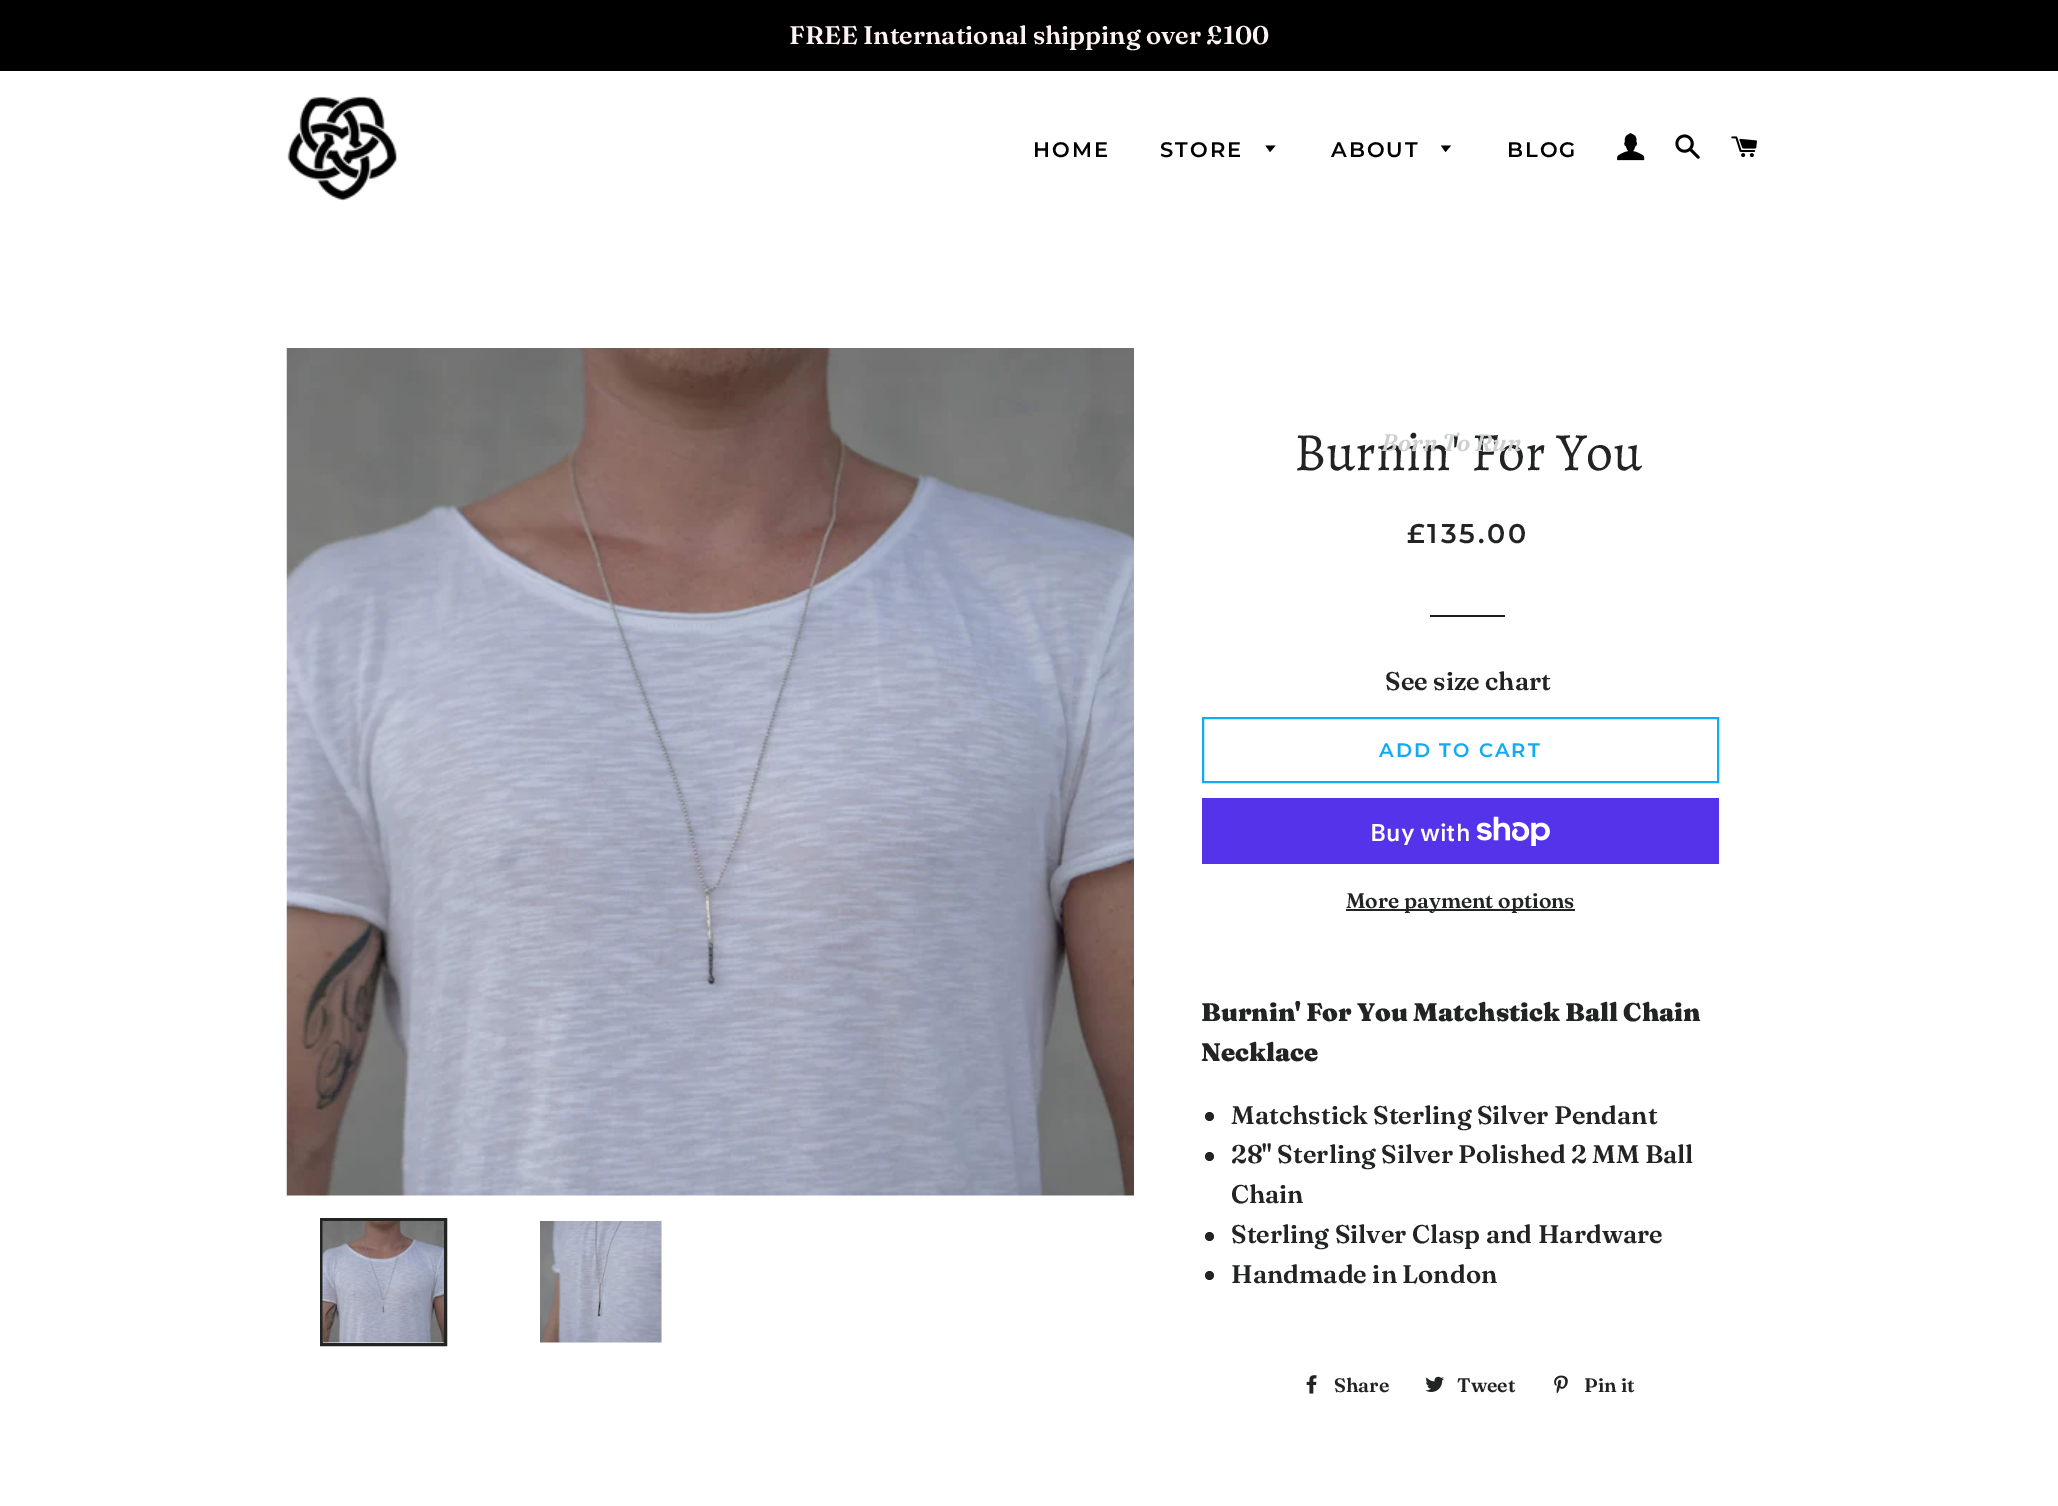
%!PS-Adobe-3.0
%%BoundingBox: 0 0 2058 1506
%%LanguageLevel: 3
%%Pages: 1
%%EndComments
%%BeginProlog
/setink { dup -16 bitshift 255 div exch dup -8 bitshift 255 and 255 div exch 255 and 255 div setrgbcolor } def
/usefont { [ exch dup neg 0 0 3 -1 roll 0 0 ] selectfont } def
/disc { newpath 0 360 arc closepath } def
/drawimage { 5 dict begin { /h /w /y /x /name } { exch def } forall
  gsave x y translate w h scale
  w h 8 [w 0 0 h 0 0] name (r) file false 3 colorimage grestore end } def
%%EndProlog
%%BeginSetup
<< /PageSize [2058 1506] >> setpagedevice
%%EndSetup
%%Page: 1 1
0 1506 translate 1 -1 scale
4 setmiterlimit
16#FFFFFF setink
0 0 2058 1506 rectfill
16#000000 setink
0 0 2058 71 rectfill
/Fraunces-SemiBold 25.5 usefont
16#FFF2F2 setink
789 44 moveto (FREE International shipping over £100) show
(img1.raw) 287 96 111 105 drawimage
/Montserrat-SemiBold 21 usefont
16#000000 setink
1033 157 moveto 2 0 (HOME) ashow
1160 157 moveto 2 0 (STORE) ashow
1265.5 145.5 moveto 1270 152 lineto 1275.5 145.5 lineto closepath fill
/Alegreya-Regular 54 usefont
16#222323 setink
1294 470 moveto (Burnin' For You) show
/Fraunces-SemiBoldItalic 24 usefont
16#CECFCF setink
1381 451 moveto (Born To Run) show
(img2.raw) 1617 133 28 28 drawimage
(img3.raw) 1675 134 25 25 drawimage
(img4.raw) 1731 136 26 22 drawimage
/Montserrat-SemiBold 21 usefont
16#000000 setink
1331 157 moveto 2 0 (ABOUT) ashow
1441 145.5 moveto 1445.5 152 lineto 1451 145.5 lineto closepath fill
1507 157 moveto 2 0 (BLOG) ashow
(img5.raw) 286 348 848 848 drawimage
16#222323 setink
3 setlinewidth
321.5 1219.5 124 125 rectstroke
(img6.raw) 322 1221 122 122 drawimage
(img7.raw) 540 1221 122 122 drawimage
/Montserrat-SemiBold 27 usefont
1407 543 moveto 2.75 0 (£135.00) ashow
16#1C1D1D setink
1430 615 75 2 rectfill
/Fraunces-SemiBold 25.5 usefont
16#222323 setink
1385 690 moveto (See size chart) show
16#12AAF2 setink
2 setlinewidth
1203 718 515 64 rectstroke
/Montserrat-SemiBold 19.5 usefont
1379 757 moveto 2 0 (ADD TO CART) ashow
16#5433EB setink
1202 798 517 66 rectfill
/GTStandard-SemiBold 24 usefont
16#FFFFFF setink
1370 841 moveto (Buy with) show
(img8.raw) 1476 816 74 30 drawimage
16#222323 setink
1346 909 229 2 rectfill
/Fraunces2-SemiBold 21 usefont
1346 908 moveto (More payment options) show
/Fraunces-Black 25.5 usefont
1201 1021 moveto (Burnin' For You Matchstick Ball Chain) show
1201 1061 moveto (Necklace) show
1209.5 1116.5 4.5 disc fill
/Fraunces-SemiBold 25.5 usefont
1231 1124 moveto (Matchstick Sterling Silver Pendant) show
1209.5 1156.5 4.5 disc fill
1231 1163 moveto (28" Sterling Silver Polished 2 MM Ball) show
1231 1203 moveto (Chain) show
1209.5 1236.5 4.5 disc fill
1231 1243 moveto (Sterling Silver Clasp and Hardware) show
1209.5 1275.5 4.5 disc fill
1231 1283 moveto (Handmade in London) show
(img9.raw) 1306 1375 11 19 drawimage
/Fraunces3-SemiBold 19.5 usefont
1334 1392 moveto (Share) show
(img10.raw) 1425 1376 19 16 drawimage
1457 1392 moveto (Tweet) show
(img11.raw) 1554 1375 14 19 drawimage
1584 1392 moveto (Pin it) show
showpage
%%EOF
